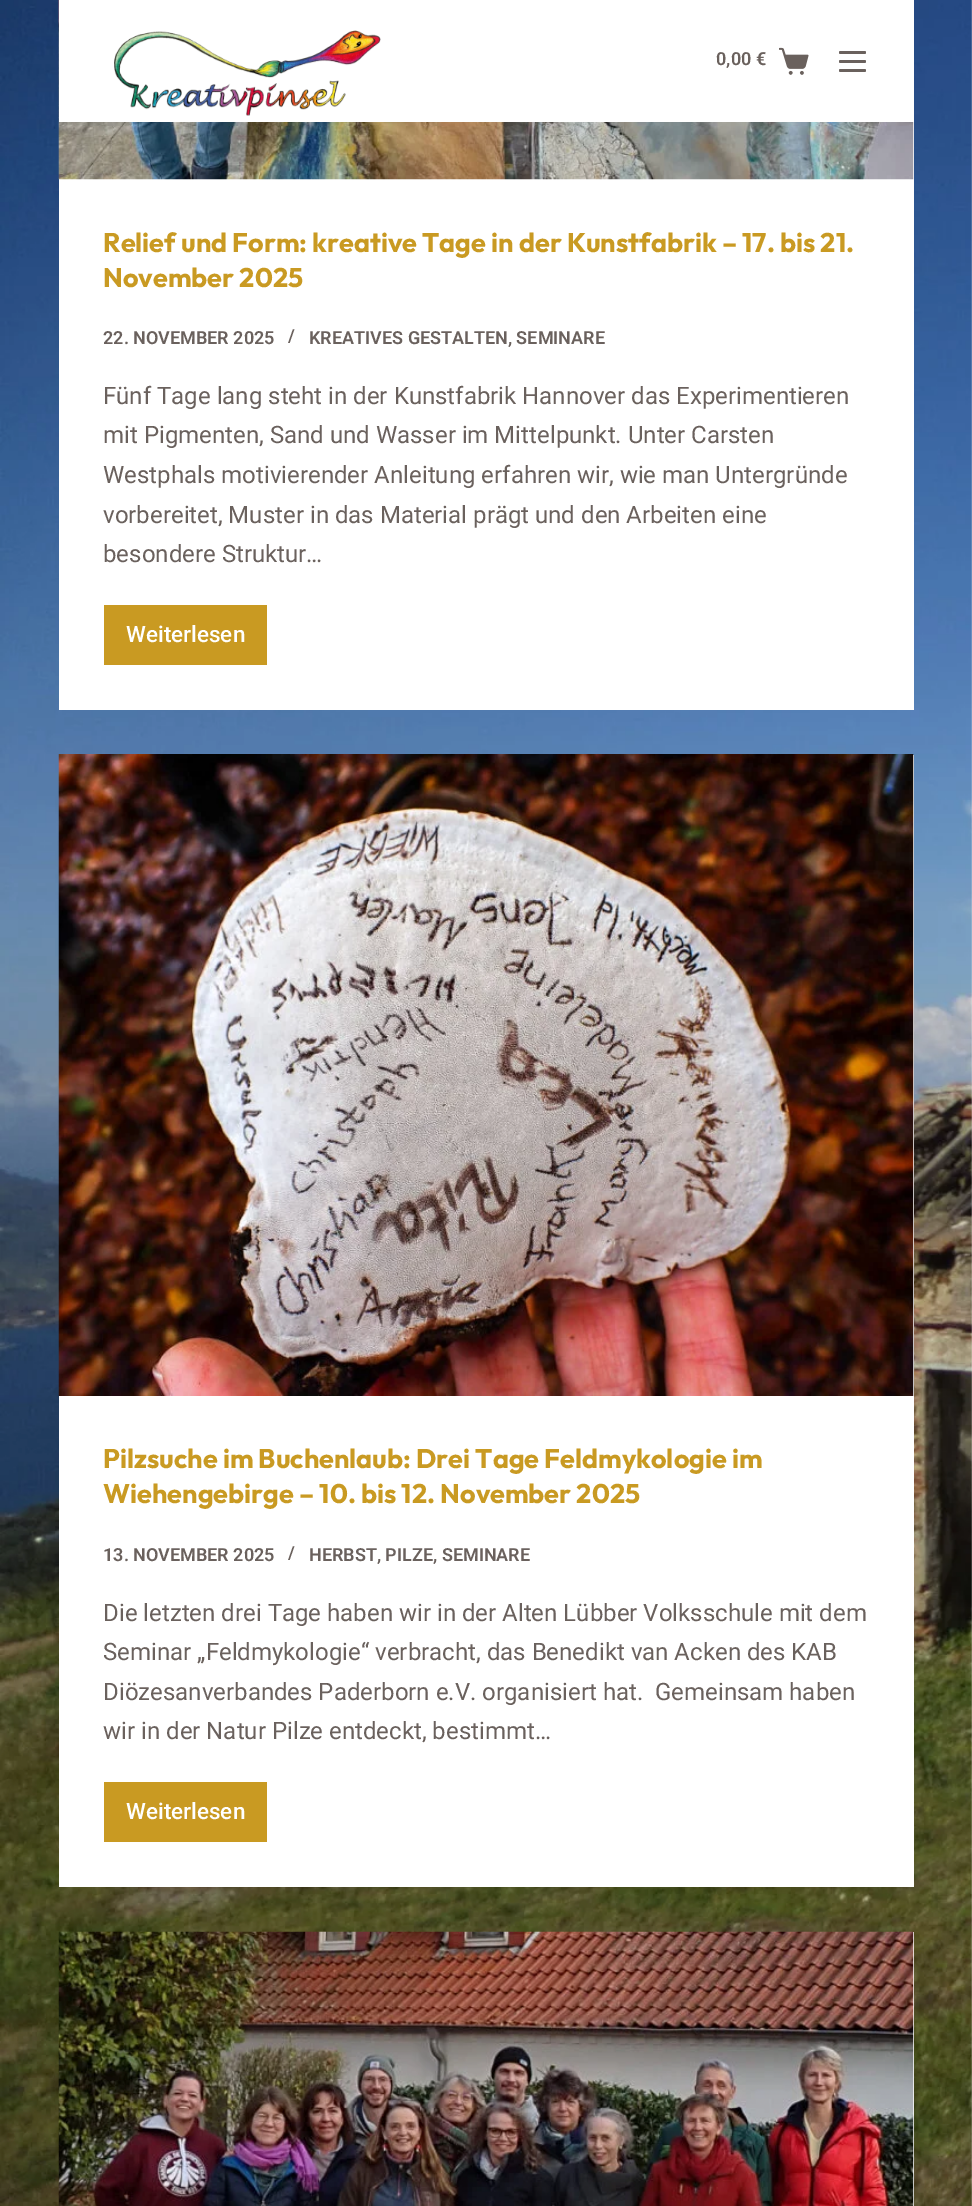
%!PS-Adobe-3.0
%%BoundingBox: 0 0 972 2206
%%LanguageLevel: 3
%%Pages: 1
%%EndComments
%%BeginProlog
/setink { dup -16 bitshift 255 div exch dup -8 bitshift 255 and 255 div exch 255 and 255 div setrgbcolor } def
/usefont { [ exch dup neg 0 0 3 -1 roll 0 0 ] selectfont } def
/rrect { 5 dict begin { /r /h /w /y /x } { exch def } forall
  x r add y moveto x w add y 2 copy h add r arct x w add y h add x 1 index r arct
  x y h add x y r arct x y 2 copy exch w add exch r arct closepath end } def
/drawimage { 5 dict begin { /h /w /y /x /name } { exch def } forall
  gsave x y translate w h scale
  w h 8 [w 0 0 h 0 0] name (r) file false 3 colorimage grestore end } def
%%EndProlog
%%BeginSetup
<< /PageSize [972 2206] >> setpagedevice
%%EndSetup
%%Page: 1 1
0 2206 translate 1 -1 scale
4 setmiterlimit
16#FFFFFF setink
0 0 972 2206 rectfill
(img1.raw) 0 0 972 2206 drawimage
59 122 855 588 rectfill
(img4.raw) 58 0 856 180 drawimage
59 0 855 122 rectfill
(img2.raw) 114 30 267 86 drawimage
/Roboto-SemiBold 18 usefont
16#6A615D setink
716 65 moveto (0,00 €) show
(img3.raw) 779 47 30 28 drawimage
839 51 27 3 1.5 rrect fill
839 60 27 3 1.5 rrect fill
839 69 27 3 1.5 rrect fill
/Outfit-Bold 27 usefont
16#C99A22 setink
103 252 moveto (Relief und Form: kreative Tage in der Kunstfabrik – 17. bis 21.) show
103 287 moveto (November 2025) show
/Roboto-SemiBold 18 usefont
16#6A615D setink
[
    [(22. NOVEMBER 2025) 103 344]
    [(/) 288 342]
    [(KREATIVES GESTALTEN, SEMINARE) 309 344]
] { aload pop moveto show } forall
/Roboto-Regular 24 usefont
[
    [(Fünf Tage lang steht in der Kunstfabrik Hannover das Experimentieren) 103 404]
    [(mit Pigmenten, Sand und Wasser im Mittelpunkt. Unter Carsten) 103 443]
    [(Westphals motivierender Anleitung erfahren wir, wie man Untergründe) 103 483]
    [(vorbereitet, Muster in das Material prägt und den Arbeiten eine) 103 523]
    [(besondere Struktur…) 103 562]
] { aload pop moveto show } forall
16#C99A22 setink
104 605 163 60 rectfill
/Roboto-Medium 22.5 usefont
16#FFFFFF setink
126 642 moveto (Weiterlesen) show
59 755 855 1132 rectfill
(img5.raw) 58 754 856 642 drawimage
/Outfit-Bold 27 usefont
16#C99A22 setink
103 1468 moveto (Pilzsuche im Buchenlaub: Drei Tage Feldmykologie im) show
103 1503 moveto (Wiehengebirge – 10. bis 12. November 2025) show
/Roboto-SemiBold 18 usefont
16#6A615D setink
[
    [(13. NOVEMBER 2025) 103 1561]
    [(/) 288 1559]
    [(HERBST, PILZE, SEMINARE) 309 1561]
] { aload pop moveto show } forall
/Roboto-Regular 24 usefont
[
    [(Die letzten drei Tage haben wir in der Alten Lübber Volksschule mit dem) 103 1621]
    [(Seminar „Feldmykologie“ verbracht, das Benedikt van Acken des KAB) 103 1660]
    [(Diözesanverbandes Paderborn e.V. organisiert hat.  Gemeinsam haben) 103 1700]
    [(wir in der Natur Pilze entdeckt, bestimmt…) 103 1739]
] { aload pop moveto show } forall
16#C99A22 setink
104 1782 163 60 rectfill
/Roboto-Medium 22.5 usefont
16#FFFFFF setink
126 1819 moveto (Weiterlesen) show
913 1932 1 274 rectfill
(img6.raw) 58 1931 856 275 drawimage
showpage
%%EOF
